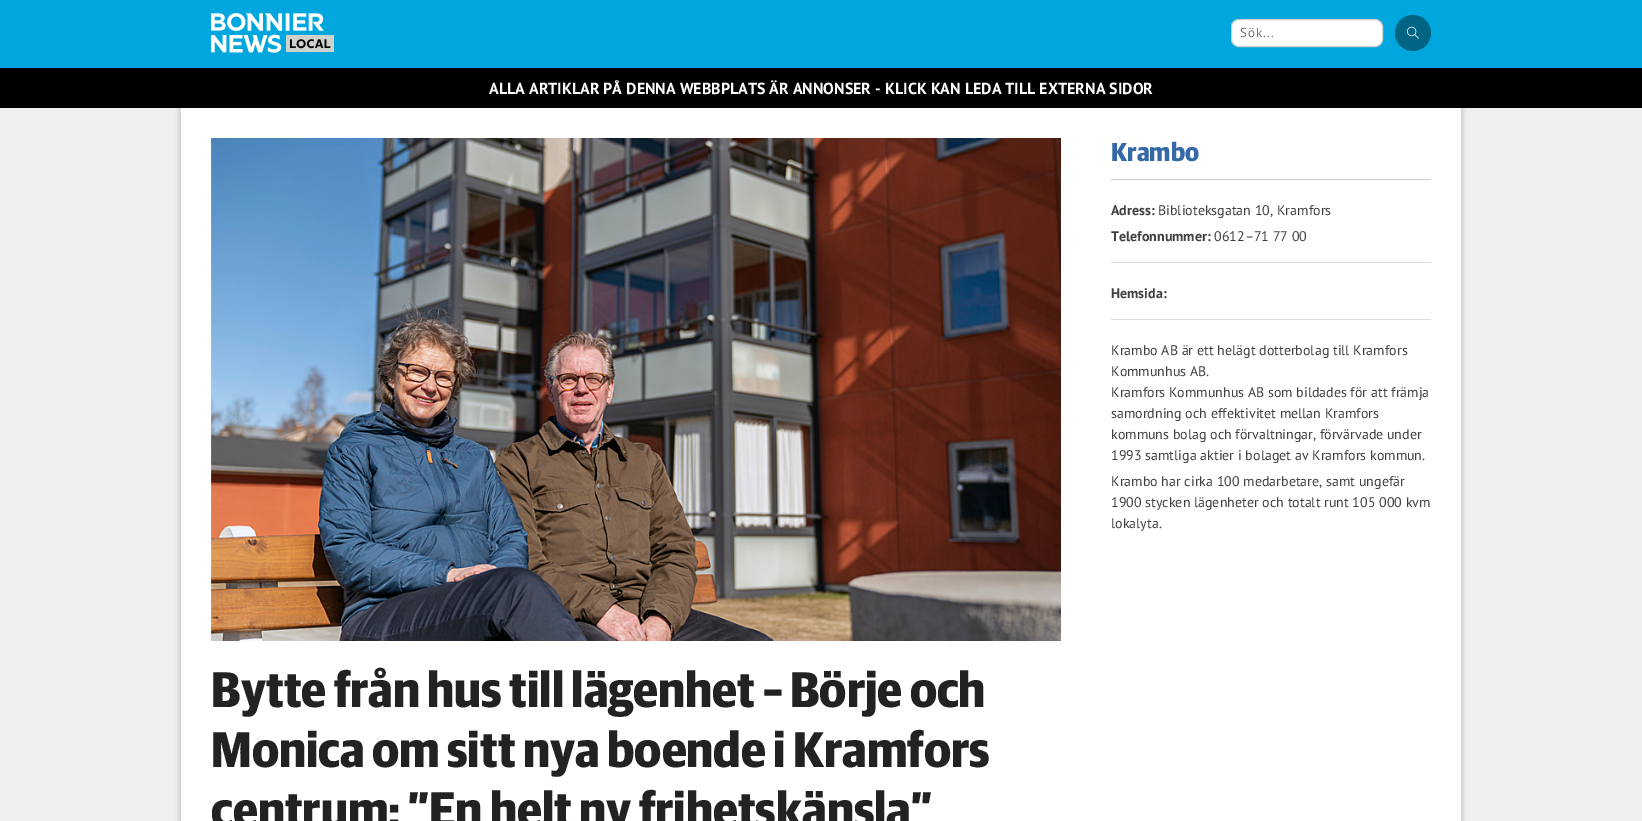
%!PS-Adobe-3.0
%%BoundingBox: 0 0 1642 821
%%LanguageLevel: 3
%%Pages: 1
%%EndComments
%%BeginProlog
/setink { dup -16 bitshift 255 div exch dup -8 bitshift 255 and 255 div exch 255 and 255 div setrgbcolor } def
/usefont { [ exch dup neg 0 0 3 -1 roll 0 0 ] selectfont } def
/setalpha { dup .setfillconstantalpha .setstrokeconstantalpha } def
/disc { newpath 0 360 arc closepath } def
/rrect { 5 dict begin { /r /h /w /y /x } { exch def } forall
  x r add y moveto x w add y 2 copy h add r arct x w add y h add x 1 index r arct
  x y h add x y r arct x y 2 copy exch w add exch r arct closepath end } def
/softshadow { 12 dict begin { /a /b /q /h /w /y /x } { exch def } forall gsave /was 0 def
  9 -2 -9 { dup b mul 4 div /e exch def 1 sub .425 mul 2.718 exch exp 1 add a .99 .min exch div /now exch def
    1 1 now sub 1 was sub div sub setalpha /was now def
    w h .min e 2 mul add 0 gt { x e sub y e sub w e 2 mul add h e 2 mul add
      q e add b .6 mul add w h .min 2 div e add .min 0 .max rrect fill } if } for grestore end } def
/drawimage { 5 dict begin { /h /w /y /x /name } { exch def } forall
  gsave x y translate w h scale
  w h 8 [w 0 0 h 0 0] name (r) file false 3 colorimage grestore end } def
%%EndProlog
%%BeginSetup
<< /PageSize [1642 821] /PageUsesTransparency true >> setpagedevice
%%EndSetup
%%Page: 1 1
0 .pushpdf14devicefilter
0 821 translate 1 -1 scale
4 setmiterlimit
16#EFEFEF setink
0 0 1642 821 rectfill
16#00A6DE setink
0 0 1642 68 rectfill
(img1.raw) 211 13 123 40 drawimage
16#FFFFFF setink
1231.5 19.5 151 27 7.5 rrect gsave fill grestore
16#CCCCCC setink
stroke
/PTSans-Regular 13 usefont
16#757575 setink
1240 37 moveto 1 0 (Sök...) ashow
16#006485 setink
1413 33 18 disc fill
(img2.raw) 1407 26 12 13 drawimage
16#000000 setink
0 68 1642 40 rectfill
/PTSans-Bold 16 usefont
16#FFFFFF setink
489 94 moveto (ALLA ARTIKLAR PÅ DENNA WEBBPLATS ÄR ANNONSER - KLICK KAN LEDA TILL EXTERNA SIDOR) show
16#000000 setink
178 105 1286 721 0 1.5 0.1 softshadow
16#FFFFFF setink
181 108 1280 713 rectfill
16#CCCCCC setink
1111 179 320 1 rectfill
/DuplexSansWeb-Bold 26 usefont
16#3468A7 setink
1111 161 moveto (Krambo) show
/PTSans-Bold 14 usefont
16#404040 setink
1111 215 moveto (Adress:) show
/PTSans-Regular 14 usefont
1158 215 moveto (Biblioteksgatan 10, Kramfors) show
/PTSans-Bold 14 usefont
1111 241 moveto (Telefonnummer:) show
/PTSans-Regular 14 usefont
1214 241 moveto (0612–71 77 00) show
16#DDDDDD setink
1111 262 320 1 rectfill
/PTSans-Bold 14 usefont
16#404040 setink
1111 298 moveto (Hemsida:) show
16#DDDDDD setink
1111 319 320 1 rectfill
/PTSans-Regular 14 usefont
16#404040 setink
[
    [(Krambo AB är ett helägt dotterbolag till Kramfors) 1111 355]
    [(Kommunhus AB.) 1111 376]
    [(Kramfors Kommunhus AB som bildades för att främja) 1111 397]
    [(samordning och effektivitet mellan Kramfors) 1111 418]
    [(kommuns bolag och förvaltningar, förvärvade under) 1111 439]
    [(1993 samtliga aktier i bolaget av Kramfors kommun.) 1111 460]
    [(Krambo har cirka 100 medarbetare, samt ungefär) 1111 486]
    [(1900 stycken lägenheter och totalt runt 105 000 kvm) 1111 507]
    [(lokalyta.) 1111 528]
] { aload pop moveto show } forall
(img3.raw) 211 138 850 503 drawimage
/DuplexSansWeb-Bold 50 usefont
16#222222 setink
[
    [(Bytte från hus till lägenhet – Börje och) 211 707]
    [(Monica om sitt nya boende i Kramfors) 211 767]
    [(centrum: ”En helt ny frihetskänsla”) 211 827]
] { aload pop moveto show } forall
.poppdf14devicefilter showpage
%%EOF
